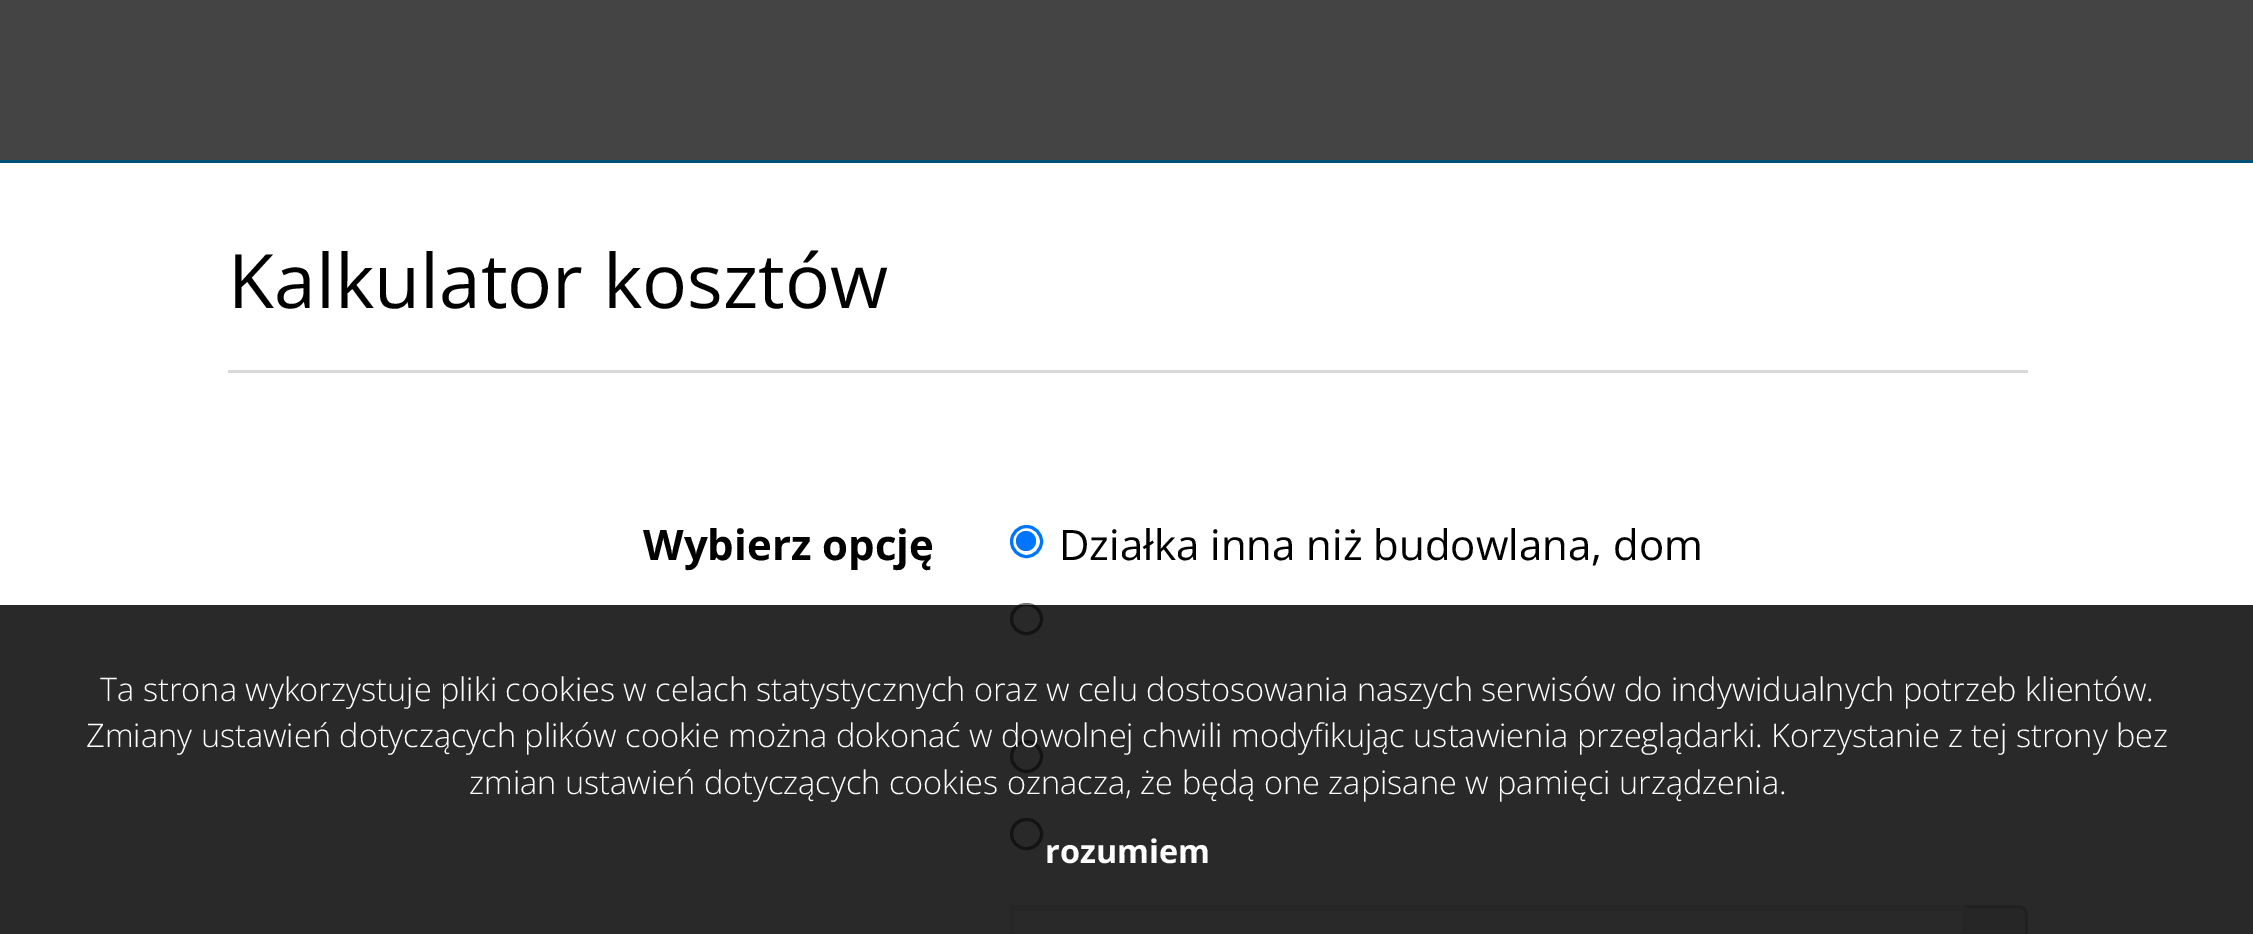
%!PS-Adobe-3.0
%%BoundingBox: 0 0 2253 934
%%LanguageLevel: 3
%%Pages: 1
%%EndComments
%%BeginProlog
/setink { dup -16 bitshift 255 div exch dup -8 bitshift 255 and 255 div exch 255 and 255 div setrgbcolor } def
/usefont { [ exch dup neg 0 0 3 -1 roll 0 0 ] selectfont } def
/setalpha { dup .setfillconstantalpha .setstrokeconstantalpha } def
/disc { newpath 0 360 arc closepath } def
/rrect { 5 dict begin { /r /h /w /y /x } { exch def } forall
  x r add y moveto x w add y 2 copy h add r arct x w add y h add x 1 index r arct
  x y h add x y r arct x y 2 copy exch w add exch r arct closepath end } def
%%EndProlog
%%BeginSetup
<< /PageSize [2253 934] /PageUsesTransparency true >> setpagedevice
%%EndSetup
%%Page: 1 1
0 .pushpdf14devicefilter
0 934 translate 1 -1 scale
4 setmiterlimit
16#FFFFFF setink
0 0 2253 934 rectfill
[
    [0 0 2253 160 16#444444]
    [0 160 2253 3 16#025178]
    [228 370 1800 3 16#D9D9D9]
] { aload pop setink rectfill } forall
/OpenSans-Regular 75 usefont
16#000000 setink
228 308 moveto (Kalkulator kosztów) show
/OpenSans-Bold 42 usefont
643 560 moveto (Wybierz opcję) show
16#0075FF setink
3 setlinewidth
1026.5 541.5 15 disc stroke
1026 541 10 disc fill
/OpenSans-Regular 42 usefont
16#000000 setink
1059 560 moveto (Działka inna niż budowlana, dom) show
16#767676 setink
1011.5 604.5 30 29 14.5 rrect stroke
1026.5 756.5 15 disc stroke
1011.5 819.5 30 29 14.5 rrect stroke
16#ECECEC setink
1013 908 950 3 rectfill
16#EDEDED setink
1011.5 906.5 952 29 rectstroke
16#EEEEEE setink
1965 905 moveto 2018 905 lineto 2023.5 905 2028 909.5 2028 915 curveto 2028 934 lineto 2028 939.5 2023.5 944 2018 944 curveto 1965 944 lineto closepath fill
16#CCCCCC setink
1965 905 moveto 2018 905 lineto 2023 905 2028 909 2028 915 curveto 2028 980 lineto 2028 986 2023 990 2018 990 curveto 1965 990 lineto closepath 1965 908 moveto 2018 908 lineto 2022 908 2025 911 2025 915 curveto 2025 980 lineto 2025 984 2022 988 2018 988 curveto 1965 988 lineto closepath eofill
0.84 setalpha
16#000000 setink
0 605 2253 329 rectfill
/OpenSans-Light 32.5 usefont
1 setalpha
16#FFFFFF setink
[
    [(Ta strona wykorzystuje pliki cookies w celach statystycznych oraz w celu dostosowania naszych serwisów do indywidualnych potrzeb klientów.) 100 701]
    [(Zmiany ustawień dotyczących plików cookie można dokonać w dowolnej chwili modyfikując ustawienia przeglądarki. Korzystanie z tej strony bez) 86 747]
    [(zmian ustawień dotyczących cookies oznacza, że będą one zapisane w pamięci urządzenia.) 469 794]
] { aload pop moveto show } forall
/OpenSans-Bold 32.5 usefont
1045 863 moveto (rozumiem) show
.poppdf14devicefilter showpage
%%EOF
